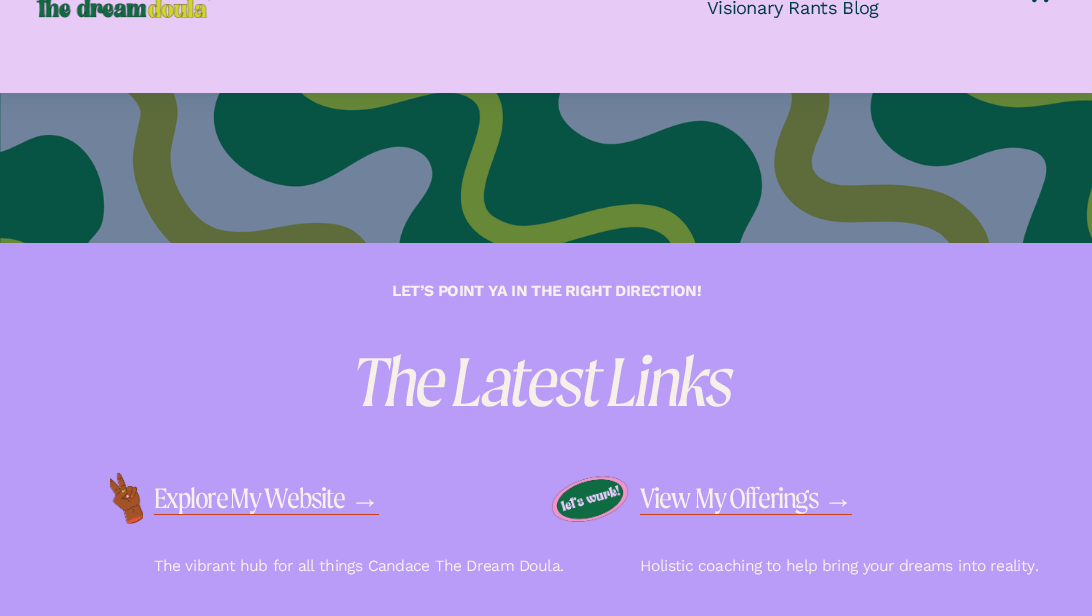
%!PS-Adobe-3.0
%%BoundingBox: 0 0 1092 616
%%LanguageLevel: 3
%%Pages: 1
%%EndComments
%%BeginProlog
/setink { dup -16 bitshift 255 div exch dup -8 bitshift 255 and 255 div exch 255 and 255 div setrgbcolor } def
/usefont { [ exch dup neg 0 0 3 -1 roll 0 0 ] selectfont } def
/setalpha { dup .setfillconstantalpha .setstrokeconstantalpha } def
/rrect { 5 dict begin { /r /h /w /y /x } { exch def } forall
  x r add y moveto x w add y 2 copy h add r arct x w add y h add x 1 index r arct
  x y h add x y r arct x y 2 copy exch w add exch r arct closepath end } def
/softshadow { 12 dict begin { /a /b /q /h /w /y /x } { exch def } forall gsave /was 0 def
  9 -2 -9 { dup b mul 4 div /e exch def 1 sub .425 mul 2.718 exch exp 1 add a .99 .min exch div /now exch def
    1 1 now sub 1 was sub div sub setalpha /was now def
    w h .min e 2 mul add 0 gt { x e sub y e sub w e 2 mul add h e 2 mul add
      q e add b .6 mul add w h .min 2 div e add .min 0 .max rrect fill } if } for grestore end } def
/drawimage { 5 dict begin { /h /w /y /x /name } { exch def } forall
  gsave x y translate w h scale
  w h 8 [w 0 0 h 0 0] name (r) file false 3 colorimage grestore end } def
%%EndProlog
%%BeginSetup
<< /PageSize [1092 616] /PageUsesTransparency true >> setpagedevice
%%EndSetup
%%Page: 1 1
0 .pushpdf14devicefilter
0 616 translate 1 -1 scale
4 setmiterlimit
16#FFFFFF setink
0 0 1092 616 rectfill
(img3.raw) 0 93 1092 150 drawimage
16#003C46 setink
0 -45 1092 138 0 15 0.15 softshadow
16#E8CAF7 setink
0 0 1092 93 rectfill
(img1.raw) 36 0 175 18 drawimage
/WorkSans-Regular 18.25 usefont
16#003C46 setink
707 14 moveto -0.55 0 (Visionary Rants Blog) ashow
(img2.raw) 1032 0 17 3 drawimage
16#B99BF8 setink
0 243 1092 373 rectfill
/WorkSans-Bold 15.7 usefont
16#F7F0EA setink
392 296 moveto -0.55 0 (LET’S POINT YA IN THE RIGHT DIRECTION!) ashow
/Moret-Italic 73.5 usefont
354 406 moveto -2.9 0 (The Latest Links) ashow
(img4.raw) 110 472 33 52 drawimage
/Moret-Regular 30 usefont
154 508 moveto -1.25 0 (Explore My Website) ashow
/LiberationSerif-Regular 30 usefont
350 508 moveto -1.25 0 (→) ashow
16#C4421E setink
154 514 225 1 rectfill
/WorkSans-Regular 15.7 usefont
16#F7F0EA setink
154 571 moveto -0.55 0 (The vibrant hub for all things Candace The Dream Doula.) ashow
(img5.raw) 551 476 78 46 drawimage
/Moret-Regular 30 usefont
640 508 moveto -1.25 0 (View  My Offerings) ashow
/LiberationSerif-Regular 30 usefont
823 508 moveto -1.25 0 (→) ashow
16#C4421E setink
640 514 212 1 rectfill
/WorkSans-Regular 15.7 usefont
16#F7F0EA setink
640 571 moveto -0.55 0 (Holistic coaching to help bring your dreams into reality.) ashow
.poppdf14devicefilter showpage
%%EOF
